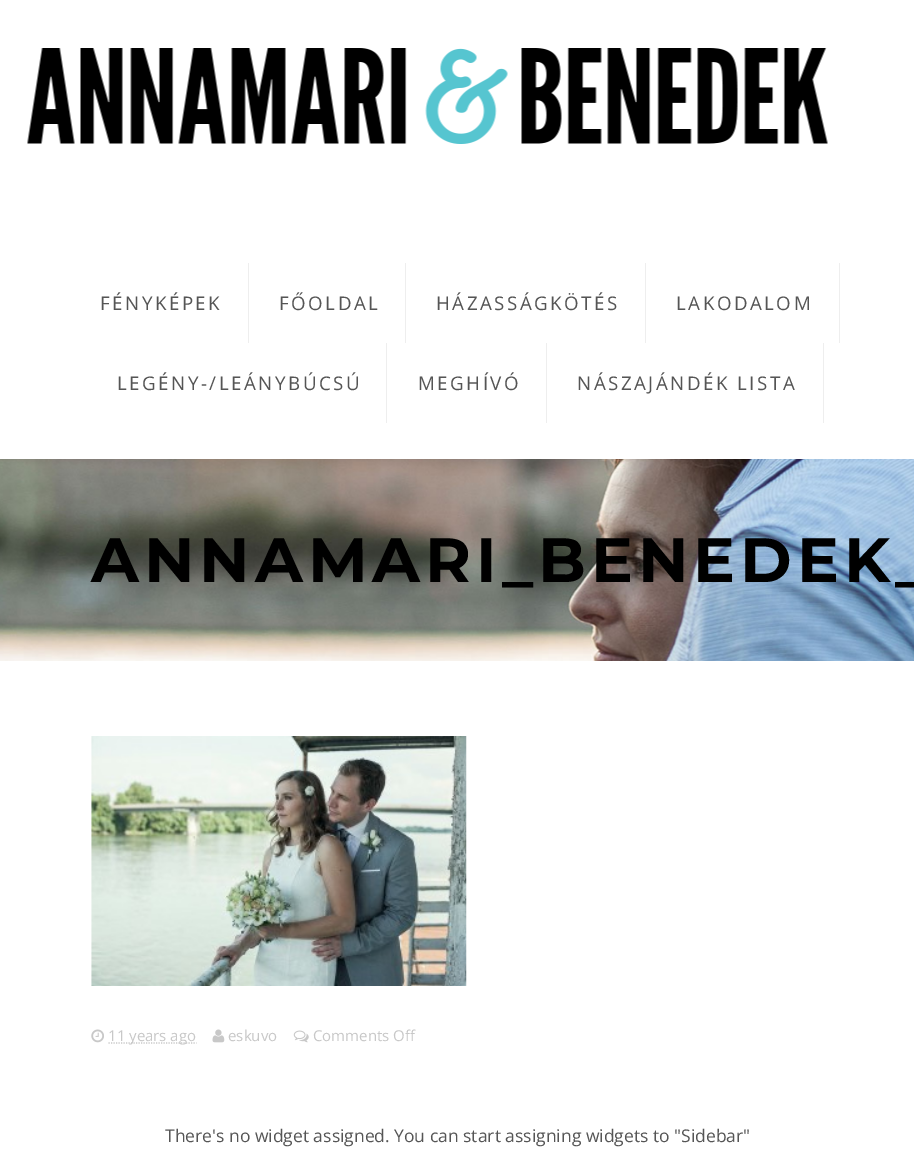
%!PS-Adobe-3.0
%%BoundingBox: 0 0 914 1166
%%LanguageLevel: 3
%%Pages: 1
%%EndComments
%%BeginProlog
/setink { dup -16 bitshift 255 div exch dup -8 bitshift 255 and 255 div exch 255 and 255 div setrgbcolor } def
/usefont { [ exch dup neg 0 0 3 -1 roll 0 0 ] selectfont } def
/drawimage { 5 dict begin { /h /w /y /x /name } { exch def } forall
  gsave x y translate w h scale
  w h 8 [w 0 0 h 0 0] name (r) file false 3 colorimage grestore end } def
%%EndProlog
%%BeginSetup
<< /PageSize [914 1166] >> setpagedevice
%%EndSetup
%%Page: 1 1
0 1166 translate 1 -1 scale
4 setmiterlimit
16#FFFFFF setink
0 0 914 1166 rectfill
(img1.raw) 27 48 801 96 drawimage
16#EEEEEE setink
248 263 1 80 rectfill
/OpenSans-Regular 18.75 usefont
16#555555 setink
100 310 moveto 2.5 0 (FÉNYKÉPEK) ashow
16#EEEEEE setink
405 263 1 80 rectfill
16#555555 setink
279 310 moveto 2.5 0 (FŐOLDAL) ashow
16#EEEEEE setink
645 263 1 80 rectfill
16#555555 setink
436 310 moveto 2.5 0 (HÁZASSÁGKÖTÉS) ashow
16#EEEEEE setink
839 263 1 80 rectfill
16#555555 setink
676 310 moveto 2.5 0 (LAKODALOM) ashow
16#EEEEEE setink
386 343 1 80 rectfill
16#555555 setink
117 390 moveto 2.5 0 (LEGÉNY-/LEÁNYBÚCSÚ) ashow
16#EEEEEE setink
546 343 1 80 rectfill
16#555555 setink
418 390 moveto 2.5 0 (MEGHÍVÓ) ashow
16#EEEEEE setink
823 343 1 80 rectfill
16#555555 setink
577 390 moveto 2.5 0 (NÁSZAJÁNDÉK LISTA) ashow
(img2.raw) 0 459 914 202 drawimage
/Montserrat-Bold 62.5 usefont
16#000000 setink
91 582 moveto 5 0 (ANNAMARI_BENEDEK_) ashow
(img3.raw) 91 736 376 250 drawimage
(img4.raw) 91 1029 13 14 drawimage
16#C8C8C8 setink
1.2 setlinewidth
[1.25 1.25] 0 setdash
108.5 1043 moveto 196.5 1043 lineto stroke
/OpenSans-Regular 15 usefont
108 1041 moveto (11 years ago) show
(img5.raw) 212 1029 13 14 drawimage
228 1041 moveto (eskuvo) show
(img6.raw) 293 1030 16 13 drawimage
313 1041 moveto (Comments Off) show
/OpenSans-Regular 17.5 usefont
16#555555 setink
165 1142 moveto (There's no widget assigned. You can start assigning widgets to "Sidebar") show
showpage
%%EOF
